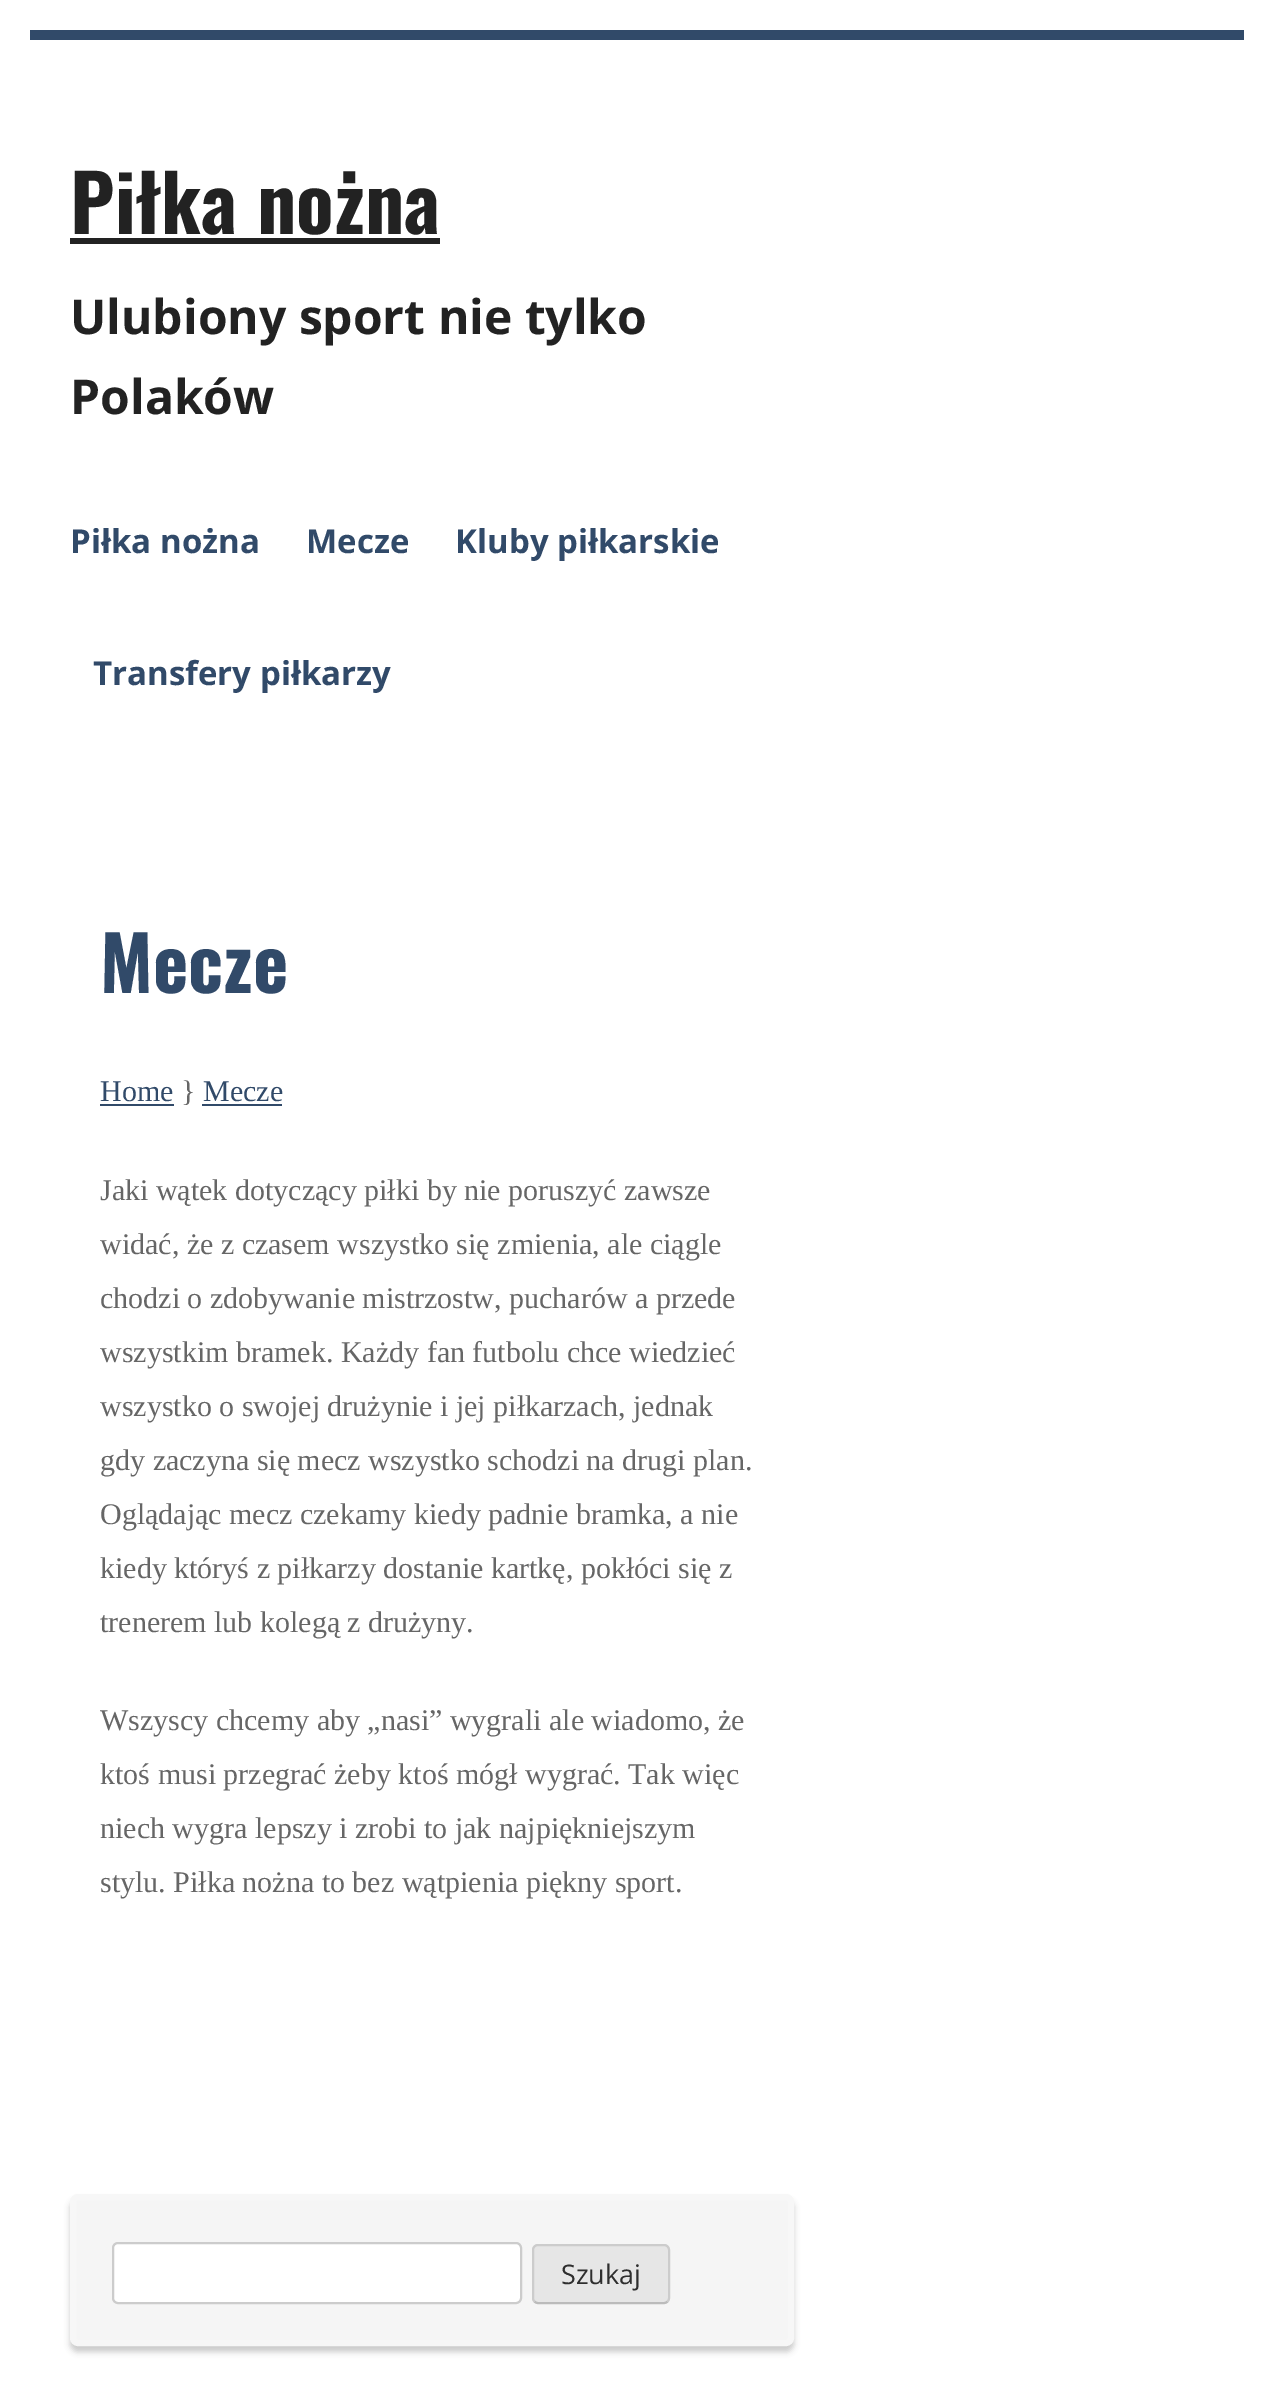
%!PS-Adobe-3.0
%%BoundingBox: 0 0 1273 2389
%%LanguageLevel: 3
%%Pages: 1
%%EndComments
%%BeginProlog
/setink { dup -16 bitshift 255 div exch dup -8 bitshift 255 and 255 div exch 255 and 255 div setrgbcolor } def
/usefont { [ exch dup neg 0 0 3 -1 roll 0 0 ] selectfont } def
/setalpha { dup .setfillconstantalpha .setstrokeconstantalpha } def
/rrect { 5 dict begin { /r /h /w /y /x } { exch def } forall
  x r add y moveto x w add y 2 copy h add r arct x w add y h add x 1 index r arct
  x y h add x y r arct x y 2 copy exch w add exch r arct closepath end } def
/softshadow { 12 dict begin { /a /b /q /h /w /y /x } { exch def } forall gsave /was 0 def
  9 -2 -9 { dup b mul 4 div /e exch def 1 sub .425 mul 2.718 exch exp 1 add a .99 .min exch div /now exch def
    1 1 now sub 1 was sub div sub setalpha /was now def
    w h .min e 2 mul add 0 gt { x e sub y e sub w e 2 mul add h e 2 mul add
      q e add b .6 mul add w h .min 2 div e add .min 0 .max rrect fill } if } for grestore end } def
%%EndProlog
%%BeginSetup
<< /PageSize [1273 2389] /PageUsesTransparency true >> setpagedevice
%%EndSetup
%%Page: 1 1
0 .pushpdf14devicefilter
0 2389 translate 1 -1 scale
4 setmiterlimit
16#FFFFFF setink
0 0 1273 2389 rectfill
16#314A69 setink
30 30 1214 10 rectfill
/Oswald-Bold 78 usefont
16#222222 setink
70 234 moveto (Piłka nożna) show
70 238 370 6 rectfill
/OpenSans-Bold 48 usefont
70 334 moveto (Ulubiony sport nie tylko) show
70 414 moveto (Polaków) show
/OpenSans-Bold 33 usefont
16#314A69 setink
[
    [(Piłka nożna) 70 553]
    [(Mecze) 306 553]
    [(Kluby piłkarskie) 455 553]
    [(Transfery piłkarzy) 93 685]
] { aload pop moveto show } forall
/Oswald-Bold 75 usefont
100 993 moveto (Mecze) show
/LiberationSerif-Regular 30 usefont
100 1101 moveto (Home) show
100 1104 74 2 rectfill
16#666666 setink
181 1101 moveto (}) show
16#314A69 setink
203 1101 moveto (Mecze) show
202 1104 80 2 rectfill
16#666666 setink
[
    [(Jaki wątek dotyczący piłki by nie poruszyć zawsze) 100 1200]
    [(widać, że z czasem wszystko się zmienia, ale ciągle) 100 1254]
    [(chodzi o zdobywanie mistrzostw, pucharów a przede) 100 1308]
    [(wszystkim bramek. Każdy fan futbolu chce wiedzieć) 100 1362]
    [(wszystko o swojej drużynie i jej piłkarzach, jednak) 100 1416]
    [(gdy zaczyna się mecz wszystko schodzi na drugi plan.) 100 1470]
    [(Oglądając mecz czekamy kiedy padnie bramka, a nie) 100 1524]
    [(kiedy któryś z piłkarzy dostanie kartkę, pokłóci się z) 100 1578]
    [(trenerem lub kolegą z drużyny.) 100 1632]
    [(Wszyscy chcemy aby „nasi” wygrali ale wiadomo, że) 100 1730]
    [(ktoś musi przegrać żeby ktoś mógł wygrać. Tak więc) 100 1784]
    [(niech wygra lepszy i zrobi to jak najpiękniejszym) 100 1838]
    [(stylu. Piłka nożna to bez wątpienia piękny sport.) 100 1892]
] { aload pop moveto show } forall
16#000000 setink
70 2200 724 152 8 3 0.2 softshadow
16#F5F5F5 setink
73 2197 718 146 5 rrect gsave fill grestore
16#F7F7F7 setink
6 setlinewidth
stroke
16#FFFFFF setink
113 2243 408 60 5 rrect gsave fill grestore
16#CCCCCC setink
2 setlinewidth
stroke
16#E6E6E6 setink
532 2244 138 60 6 rrect fill
16#BBBBBB setink
667.5 2301.5 moveto 666.5 2302.5 665.5 2303 664 2303 curveto 538 2303 lineto 536.5 2303 535.5 2302.5 534.5 2301.5 curveto stroke
16#CCCCCC setink
534.5 2301.5 moveto 533.5 2300.5 533 2299.5 533 2298 curveto 533 2250 lineto 533 2248.5 533.5 2247.5 534.5 2246.5 curveto 535.5 2245.5 536.5 2245 538 2245 curveto 664 2245 lineto 665.5 2245 666.5 2245.5 667.5 2246.5 curveto 668.5 2247.5 669 2248.5 669 2250 curveto 669 2298 lineto 669 2299.5 668.5 2300.5 667.5 2301.5 curveto stroke
/OpenSans-Regular 27 usefont
16#2E2E2E setink
561 2284 moveto (Szukaj) show
.poppdf14devicefilter showpage
%%EOF
